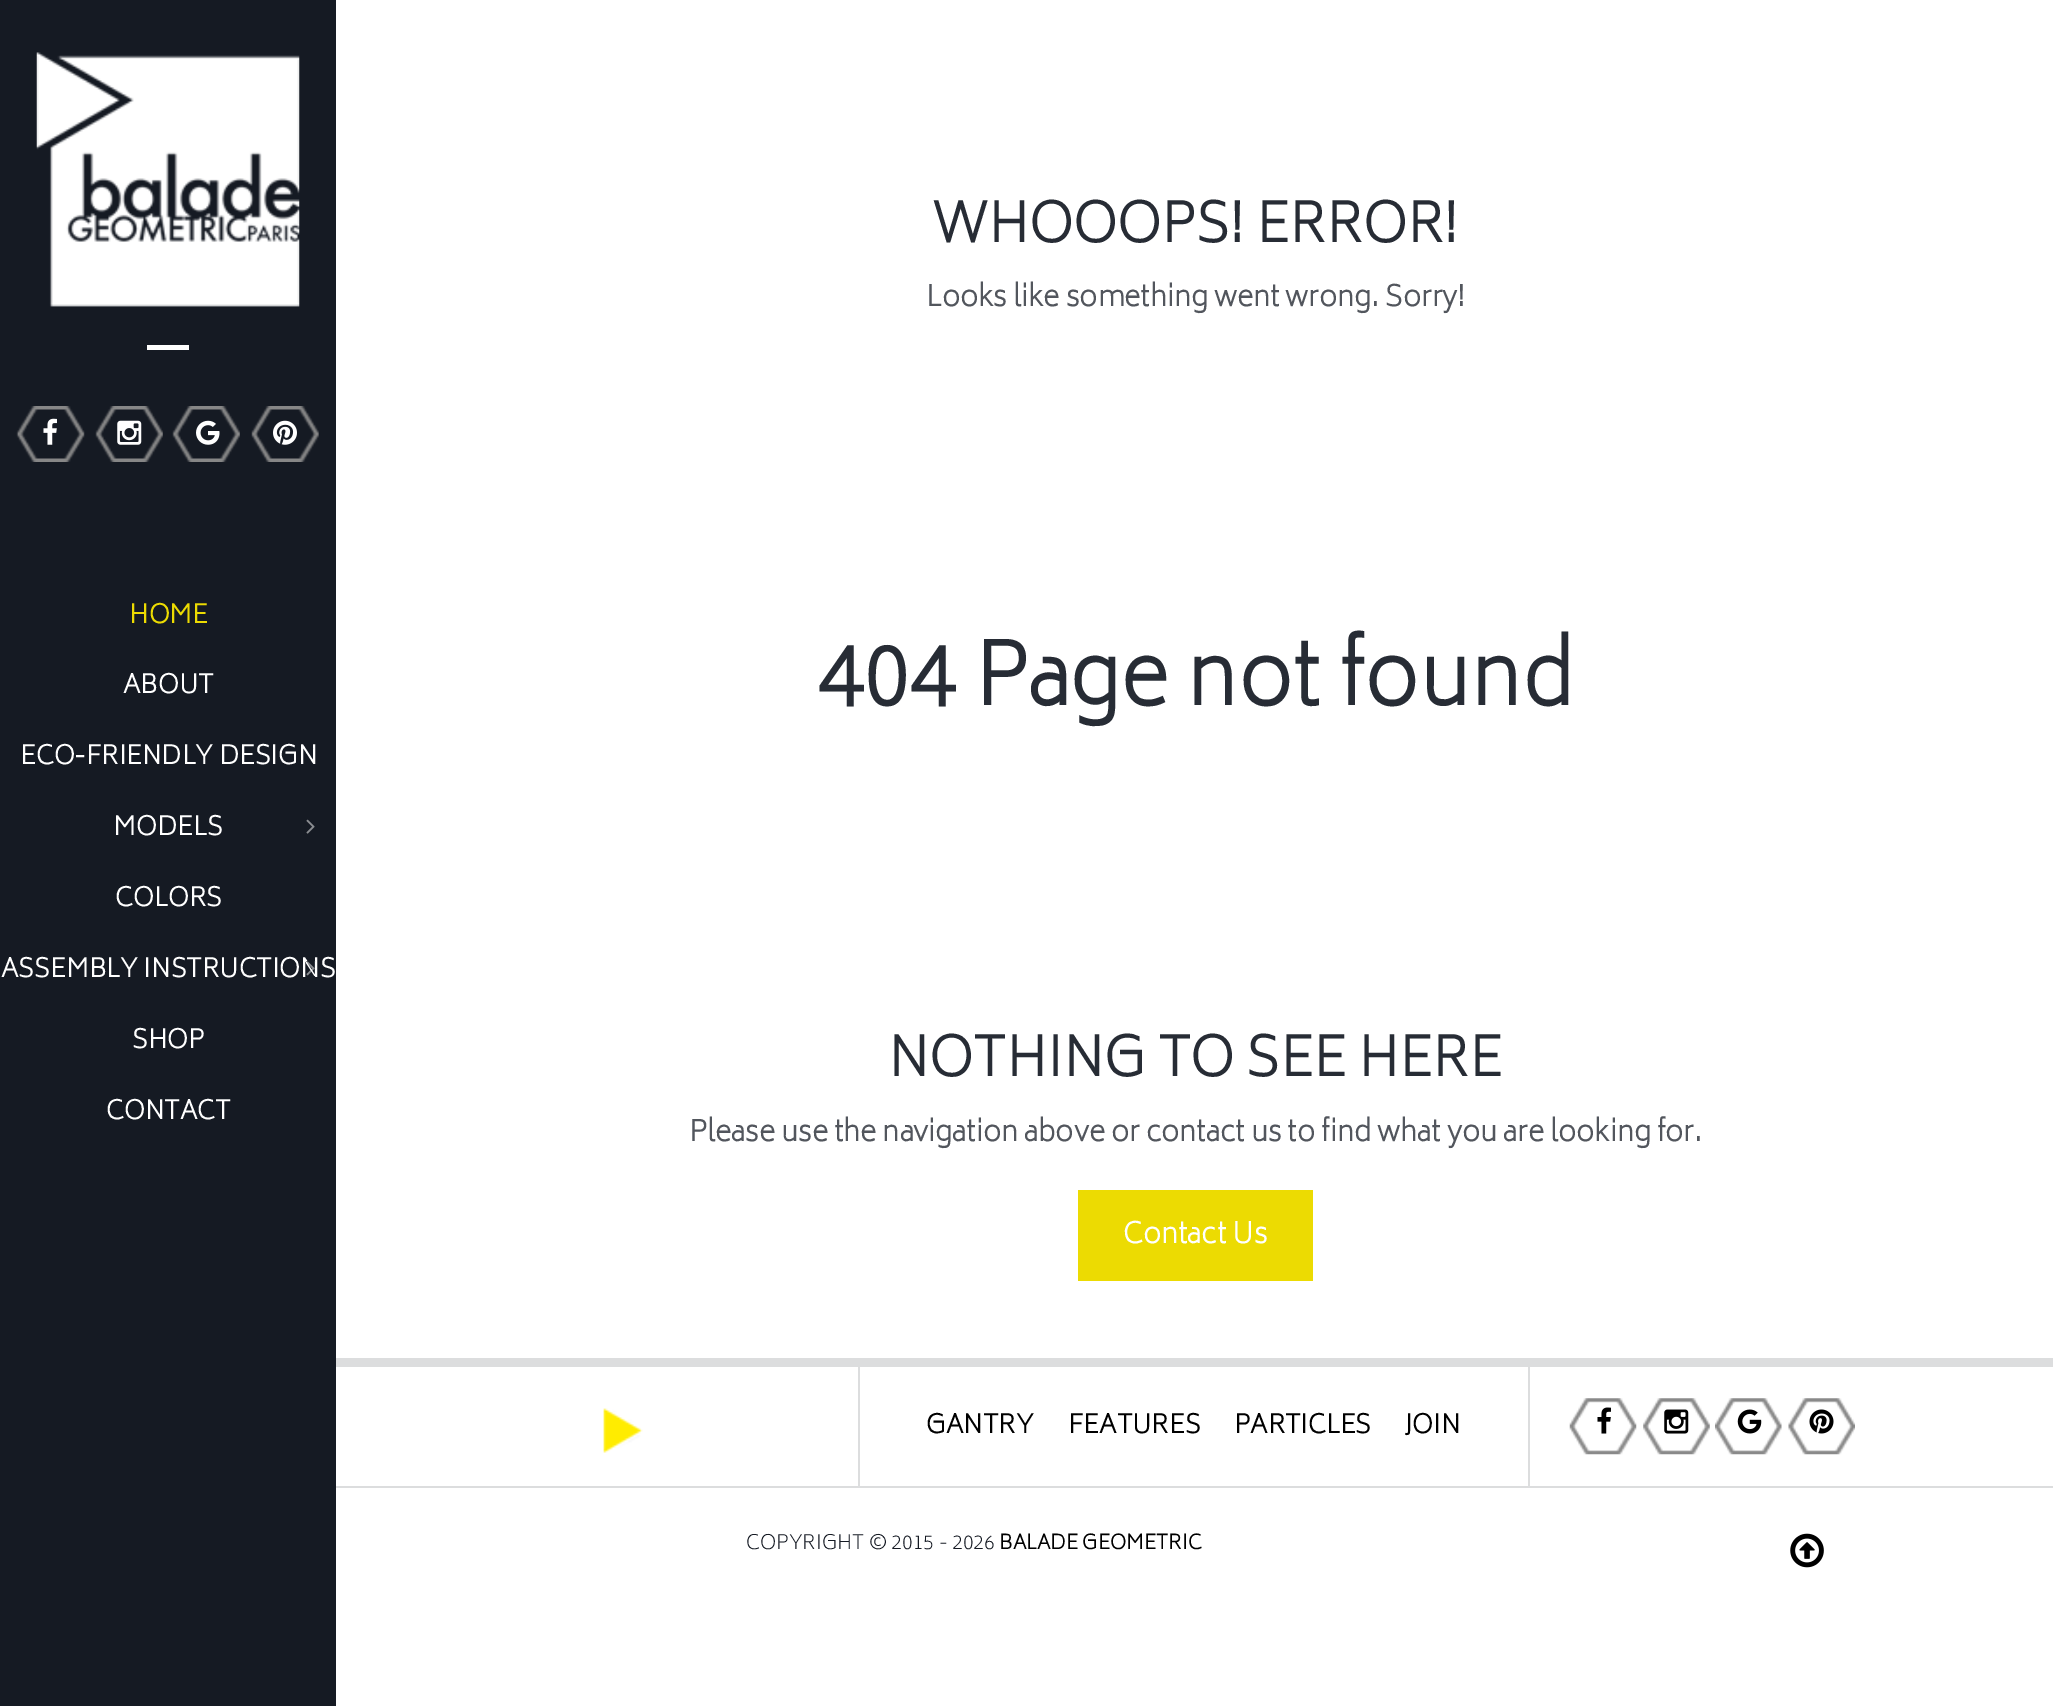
%!PS-Adobe-3.0
%%BoundingBox: 0 0 2053 1706
%%LanguageLevel: 3
%%Pages: 1
%%EndComments
%%BeginProlog
/setink { dup -16 bitshift 255 div exch dup -8 bitshift 255 and 255 div exch 255 and 255 div setrgbcolor } def
/usefont { [ exch dup neg 0 0 3 -1 roll 0 0 ] selectfont } def
/drawimage { 5 dict begin { /h /w /y /x /name } { exch def } forall
  gsave x y translate w h scale
  w h 8 [w 0 0 h 0 0] name (r) file false 3 colorimage grestore end } def
%%EndProlog
%%BeginSetup
<< /PageSize [2053 1706] >> setpagedevice
%%EndSetup
%%Page: 1 1
0 1706 translate 1 -1 scale
4 setmiterlimit
16#FFFFFF setink
0 0 2053 1706 rectfill
/Biryani-Bold 53.25 usefont
16#272C35 setink
932 242 moveto (WHOOOPS! ERROR!) show
/Biryani-Bold 28 usefont
16#52565D setink
926 306 moveto (Looks like something went wrong. Sorry!) show
16#151A23 setink
0 0 336 1706 rectfill
(img1.raw) 36 52 264 255 drawimage
16#FFFFFF setink
147 345 42 5 rectfill
(img2.raw) 16 406 69 56 drawimage
(img3.raw) 43 418 14 27 drawimage
(img4.raw) 95 406 68 56 drawimage
(img5.raw) 117 420 25 25 drawimage
(img4.raw) 172 406 68 56 drawimage
(img6.raw) 196 420 24 25 drawimage
(img7.raw) 251 406 68 56 drawimage
(img8.raw) 273 420 24 25 drawimage
/Biryani-Bold 25.25 usefont
16#ECDB02 setink
129 623 moveto (HOME) show
16#FFFFFF setink
[
    [(ABOUT) 123 693]
    [(ECO-FRIENDLY DESIGN) 20 764]
    [(MODELS) 113 835]
] { aload pop moveto show } forall
(img9.raw) 306 819 9 15 drawimage
115 906 moveto (COLORS) show
1 977 moveto (ASSEMBLY INSTRUCTIONS) show
(img10.raw) 306 961 9 15 drawimage
132 1048 moveto (SHOP) show
106 1119 moveto (CONTACT) show
/Biryani-Bold 84 usefont
16#272C35 setink
817 705 moveto (404 Page not found) show
/Biryani-Bold 53.25 usefont
888 1076 moveto (NOTHING TO SEE HERE) show
/Biryani-Bold 28 usefont
16#52565D setink
689 1141 moveto (Please use the navigation above or contact us to find what you are looking for.) show
16#ECDB02 setink
1078 1190 235 91 rectfill
16#FFFFFF setink
1123 1243 moveto (Contact Us) show
16#DCDDDE setink
336 1358 1717 9 rectfill
336 1486 1717 2 rectfill
(img11.raw) 603 1408 40 45 drawimage
1528 1367 2 119 rectfill
858 1367 2 119 rectfill
/Biryani-Bold 25.25 usefont
16#000000 setink
[
    [(GANTRY) 926 1433]
    [(FEATURES) 1068 1433]
    [(PARTICLES) 1234 1433]
    [(JOIN) 1405 1433]
] { aload pop moveto show } forall
(img12.raw) 1569 1398 68 57 drawimage
(img13.raw) 1597 1407 14 27 drawimage
(img14.raw) 1643 1398 67 57 drawimage
(img15.raw) 1664 1409 25 25 drawimage
(img16.raw) 1715 1398 67 57 drawimage
(img17.raw) 1737 1409 25 25 drawimage
(img18.raw) 1788 1398 67 57 drawimage
(img19.raw) 1809 1409 25 25 drawimage
/Biryani-ExtraLight 19.6 usefont
16#151A23 setink
746 1549 moveto (COPYRIGHT © 2015 - 2026) show
/Biryani-Bold 19.6 usefont
16#000000 setink
999 1549 moveto (BALADE GEOMETRIC) show
(img20.raw) 1790 1533 34 35 drawimage
showpage
%%EOF
